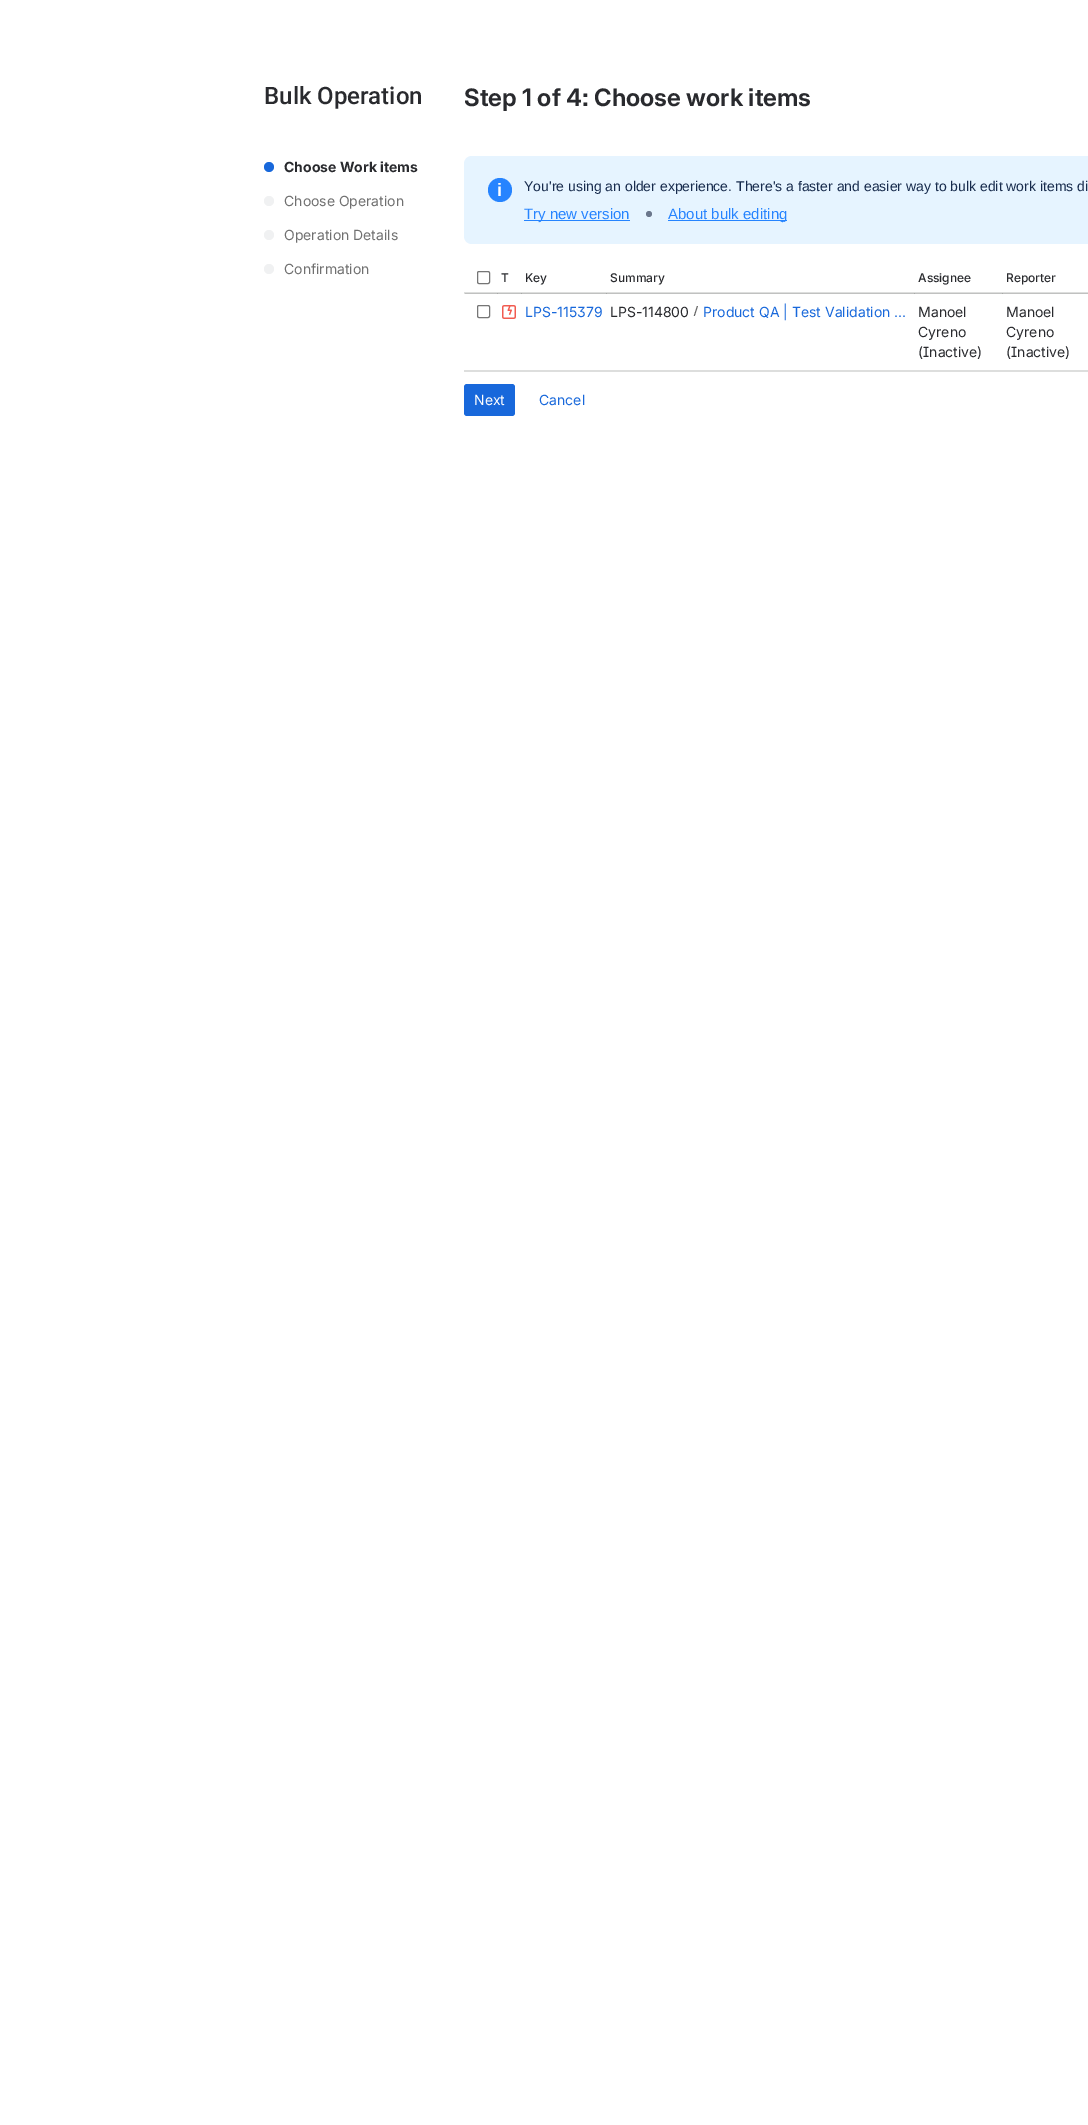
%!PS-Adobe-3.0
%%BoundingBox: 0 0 1088 2125
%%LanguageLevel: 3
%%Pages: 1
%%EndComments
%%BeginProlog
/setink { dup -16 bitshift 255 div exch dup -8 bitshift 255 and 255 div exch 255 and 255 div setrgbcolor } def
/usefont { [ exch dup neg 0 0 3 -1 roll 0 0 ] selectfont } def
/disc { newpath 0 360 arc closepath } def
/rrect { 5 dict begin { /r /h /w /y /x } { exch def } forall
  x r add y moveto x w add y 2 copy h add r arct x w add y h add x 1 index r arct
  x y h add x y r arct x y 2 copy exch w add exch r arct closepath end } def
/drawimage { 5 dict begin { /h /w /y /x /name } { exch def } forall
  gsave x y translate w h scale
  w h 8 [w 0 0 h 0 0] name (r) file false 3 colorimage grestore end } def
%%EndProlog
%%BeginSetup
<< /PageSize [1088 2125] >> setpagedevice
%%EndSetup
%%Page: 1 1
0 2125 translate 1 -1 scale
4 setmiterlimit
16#FFFFFF setink
0 0 1088 2125 rectfill
[
    [464 292 624 2 16#DDDEDD]
    [465 293 623 1 16#C0C1C0]
    [497 293 1 1 16#A7A9A7]
    [521 293 1 1 16#A7A9A7]
    [606 293 1 1 16#A7A9A7]
    [914 293 1 1 16#A7A9A7]
] { aload pop setink rectfill } forall
/Roboto-Medium 24 usefont
16#292A2E setink
264 104 moveto (Bulk Operation) show
16#1868DB setink
269 167 5 disc fill
/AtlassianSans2-Bold 14 usefont
16#292A2E setink
284 172 moveto (Choose Work items) show
16#F0F1F2 setink
269 201 5 disc fill
/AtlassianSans-Regular 14 usefont
16#707070 setink
284 206 moveto (Choose Operation) show
16#F0F1F2 setink
269 235 5 disc fill
16#707070 setink
284 240 moveto (Operation Details) show
16#F0F1F2 setink
269 269 5 disc fill
16#707070 setink
284 274 moveto (Confirmation) show
/AtlassianSans-Bold 24 usefont
16#292A2E setink
464 106 moveto (Step 1 of 4: Choose work items) show
16#E6F4FF setink
472 156 moveto 1088 156 lineto 1088 244 lineto 472 244 lineto 467.5 244 464 240.5 464 236 curveto 464 164 lineto 464 159.5 467.5 156 472 156 curveto closepath fill
16#2684FF setink
500 190 12 disc fill
/LiberationSans-Bold 18 usefont
16#FFFFFF setink
497 196 moveto (i) show
/LiberationSans-Regular 14 usefont
16#172B4D setink
524 191 moveto (You're using an older experience. There's a faster and easier way to bulk edit work items di) show
16#2684FF setink
524 220 106 1 rectfill
/LiberationSans-Regular 15 usefont
524 219 moveto (Try new version) show
16#6B778C setink
649 214 3 disc fill
16#2684FF setink
668 220 119 1 rectfill
668 219 moveto (About bulk editing) show
16#767676 setink
477.5 271.5 12 12 1.5 rrect stroke
/AtlassianSans-Medium 12 usefont
16#292A2E setink
[
    [(T) 501 282]
    [(Key) 525 282]
    [(Summary) 610 282]
    [(Assignee) 918 282]
] { aload pop moveto show } forall
16#A7A9A7 setink
1002 293 1 1 rectfill
16#292A2E setink
1006 282 moveto (Reporter) show
16#DDDEDD setink
464 370 624 2 rectfill
16#767676 setink
477.5 305.5 12 12 1.5 rrect stroke
(img1.raw) 502 305 14 14 drawimage
/AtlassianSans-Regular 14 usefont
16#1868DB setink
525 317 moveto (LPS-115379) show
16#292A2E setink
610 317 moveto (LPS-114800) show
(img2.raw) 693 306 5 10 drawimage
16#1868DB setink
703 317 moveto (Product QA | Test Validation …) show
16#292A2E setink
[
    [(Manoel) 918 317]
    [(Cyreno) 918 337]
    [(\(Inactive\)) 918 357]
    [(Manoel) 1006 317]
    [(Cyreno) 1006 337]
    [(\(Inactive\)) 1006 357]
] { aload pop moveto show } forall
16#1868DB setink
464 384 51 32 3 rrect fill
16#FFFFFF setink
474 405 moveto (Next) show
16#1868DB setink
539 405 moveto (Cancel) show
showpage
%%EOF
